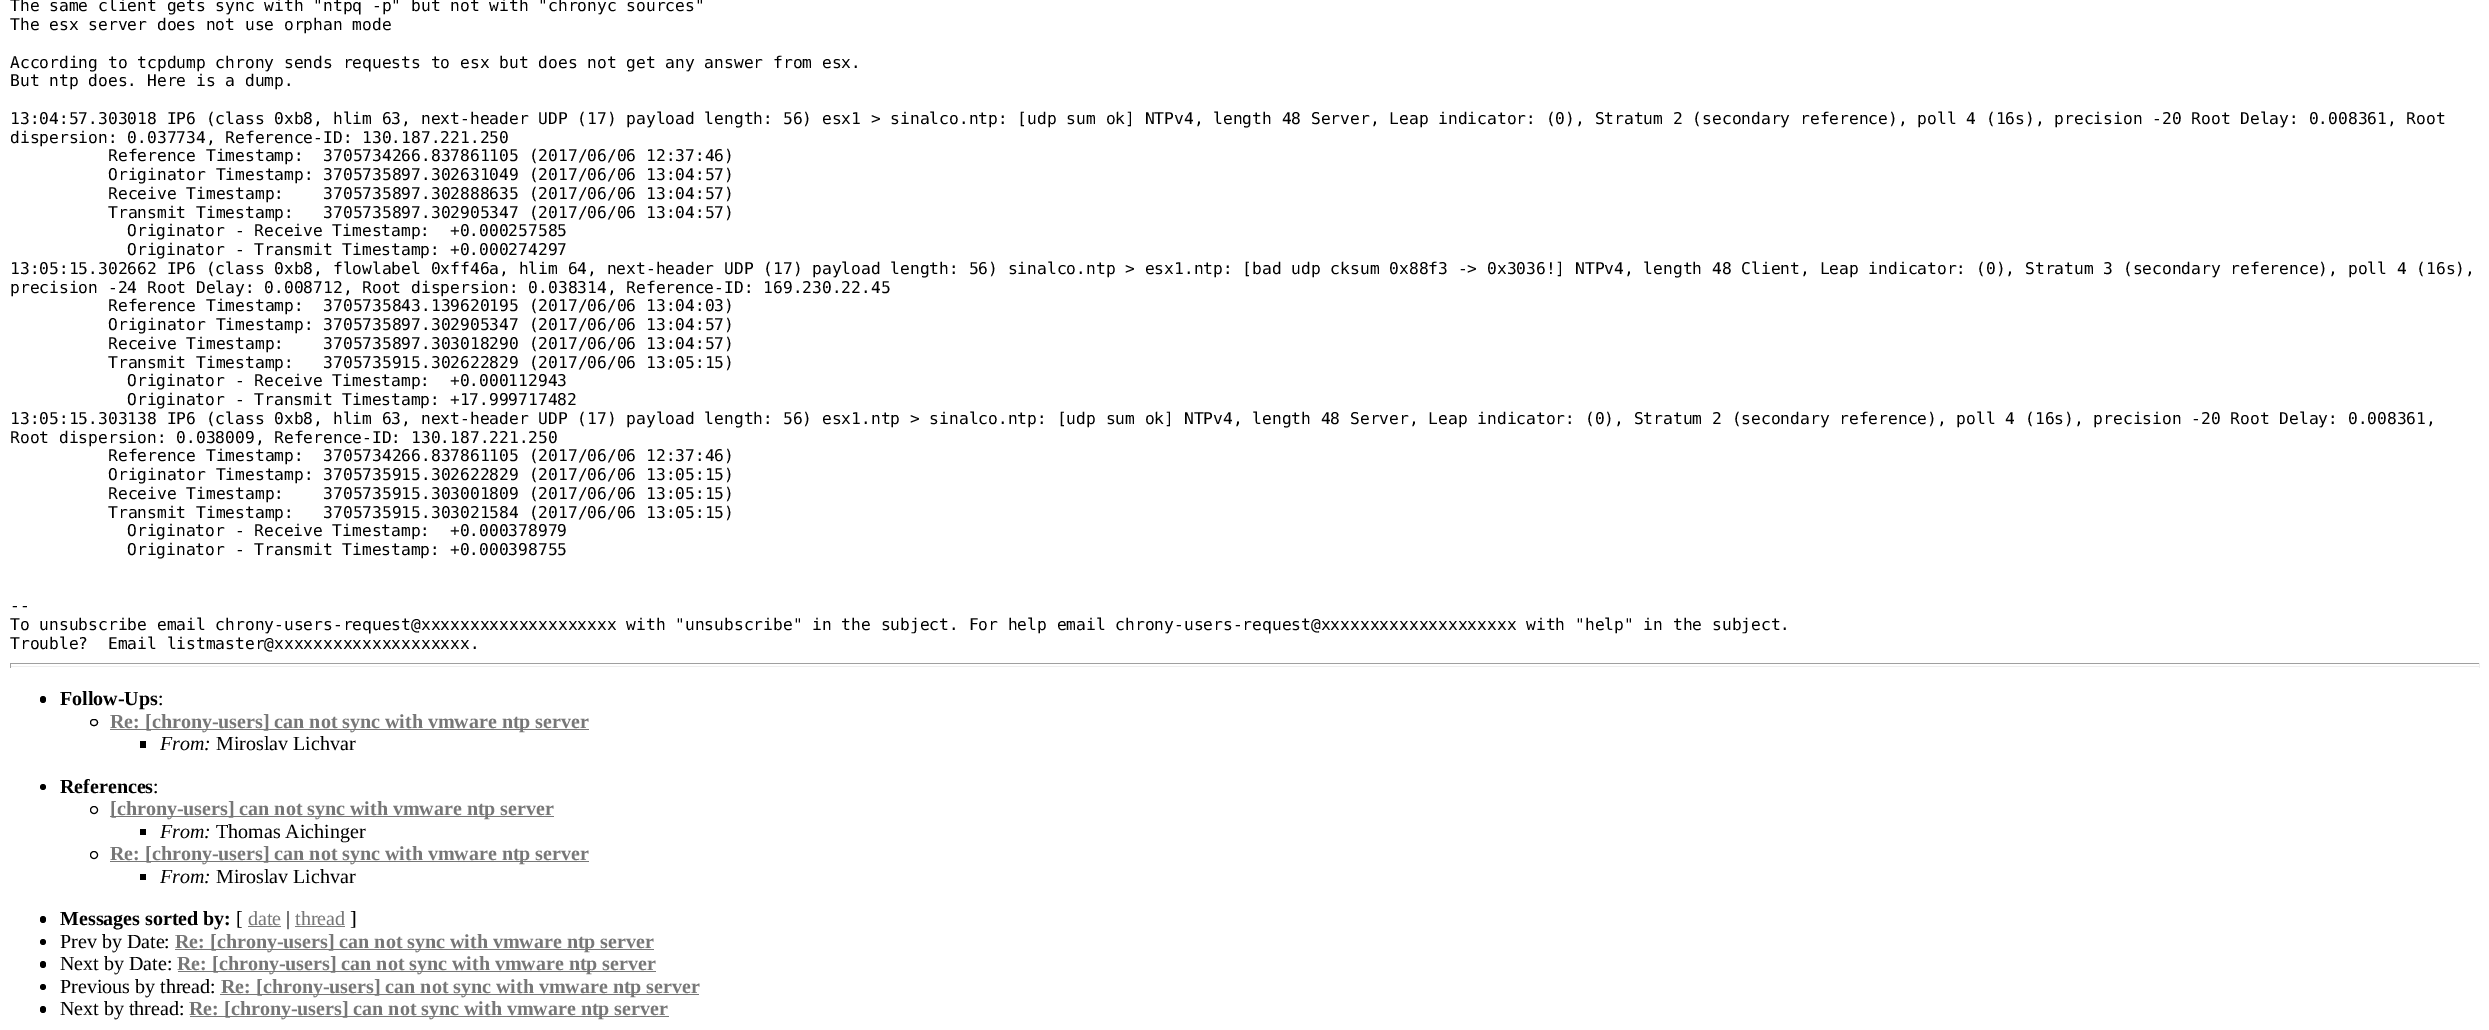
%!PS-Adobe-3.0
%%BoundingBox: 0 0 2489 1030
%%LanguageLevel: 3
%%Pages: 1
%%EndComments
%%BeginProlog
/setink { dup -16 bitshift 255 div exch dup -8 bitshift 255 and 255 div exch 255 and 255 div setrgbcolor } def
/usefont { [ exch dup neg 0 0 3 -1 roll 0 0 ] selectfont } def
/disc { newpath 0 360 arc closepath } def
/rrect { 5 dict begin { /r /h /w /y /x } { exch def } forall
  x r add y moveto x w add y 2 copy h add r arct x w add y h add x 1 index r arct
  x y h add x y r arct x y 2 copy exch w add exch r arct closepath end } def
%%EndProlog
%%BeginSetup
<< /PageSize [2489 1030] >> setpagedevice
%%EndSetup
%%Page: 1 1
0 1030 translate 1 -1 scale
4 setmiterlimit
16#FFFFFF setink
0 0 2489 1030 rectfill
/DejaVuSansMono-Regular 16.25 usefont
16#000000 setink
[
    [(The same client gets sync with "ntpq -p" but not with "chronyc sources") 10 11]
    [(The esx server does not use orphan mode) 10 30]
    [(According to tcpdump chrony sends requests to esx but does not get any answer from esx.) 10 68]
    [(But ntp does. Here is a dump.) 10 86]
    [(13:04:57.303018 IP6 \(class 0xb8, hlim 63, next-header UDP \(17\) payload length: 56\) esx1 > sinalco.ntp: [udp sum ok] NTPv4, length 48 Server, Leap indicator: \(0\), Stratum 2 \(secondary reference\), poll 4 \(16s\), precision -20 Root Delay: 0.008361, Root) 10 124]
    [(dispersion: 0.037734, Reference-ID: 130.187.221.250) 10 143]
    [(Reference Timestamp:  3705734266.837861105 \(2017/06/06 12:37:46\)) 108 161]
    [(Originator Timestamp: 3705735897.302631049 \(2017/06/06 13:04:57\)) 108 180]
    [(Receive Timestamp:    3705735897.302888635 \(2017/06/06 13:04:57\)) 108 199]
    [(Transmit Timestamp:   3705735897.302905347 \(2017/06/06 13:04:57\)) 108 218]
    [(Originator - Receive Timestamp:  +0.000257585) 127 236]
    [(Originator - Transmit Timestamp: +0.000274297) 127 255]
    [(13:05:15.302662 IP6 \(class 0xb8, flowlabel 0xff46a, hlim 64, next-header UDP \(17\) payload length: 56\) sinalco.ntp > esx1.ntp: [bad udp cksum 0x88f3 -> 0x3036!] NTPv4, length 48 Client, Leap indicator: \(0\), Stratum 3 \(secondary reference\), poll 4 \(16s\),) 10 274]
    [(precision -24 Root Delay: 0.008712, Root dispersion: 0.038314, Reference-ID: 169.230.22.45) 10 293]
    [(Reference Timestamp:  3705735843.139620195 \(2017/06/06 13:04:03\)) 108 311]
    [(Originator Timestamp: 3705735897.302905347 \(2017/06/06 13:04:57\)) 108 330]
    [(Receive Timestamp:    3705735897.303018290 \(2017/06/06 13:04:57\)) 108 349]
    [(Transmit Timestamp:   3705735915.302622829 \(2017/06/06 13:05:15\)) 108 368]
    [(Originator - Receive Timestamp:  +0.000112943) 127 386]
    [(Originator - Transmit Timestamp: +17.999717482) 127 405]
    [(13:05:15.303138 IP6 \(class 0xb8, hlim 63, next-header UDP \(17\) payload length: 56\) esx1.ntp > sinalco.ntp: [udp sum ok] NTPv4, length 48 Server, Leap indicator: \(0\), Stratum 2 \(secondary reference\), poll 4 \(16s\), precision -20 Root Delay: 0.008361,) 10 424]
    [(Root dispersion: 0.038009, Reference-ID: 130.187.221.250) 10 443]
    [(Reference Timestamp:  3705734266.837861105 \(2017/06/06 12:37:46\)) 108 461]
    [(Originator Timestamp: 3705735915.302622829 \(2017/06/06 13:05:15\)) 108 480]
    [(Receive Timestamp:    3705735915.303001809 \(2017/06/06 13:05:15\)) 108 499]
    [(Transmit Timestamp:   3705735915.303021584 \(2017/06/06 13:05:15\)) 108 518]
    [(Originator - Receive Timestamp:  +0.000378979) 127 536]
    [(Originator - Transmit Timestamp: +0.000398755) 127 555]
    [(--) 10 611]
    [(To unsubscribe email chrony-users-request@xxxxxxxxxxxxxxxxxxxx with "unsubscribe" in the subject. For help email chrony-users-request@xxxxxxxxxxxxxxxxxxxx with "help" in the subject.) 10 630]
    [(Trouble?  Email listmaster@xxxxxxxxxxxxxxxxxxxx.) 10 649]
] { aload pop moveto show } forall
[
    [10 663 2470 1 16#9F9F9F]
    [2479 663 1 5 16#EEEEEE]
    [10 666 2470 1 16#EEEEEE]
    [10 663 1 5 16#9F9F9F]
] { aload pop setink rectfill } forall
16#000000 setink
40 696 6 7 3 rrect fill
/LiberationSerif-Bold 20 usefont
60 705 moveto (Follow-Ups) show
/LiberationSerif-Regular 20 usefont
158 705 moveto (:) show
90.5 719.5 7 6 3 rrect stroke
16#777777 setink
110 729 479 1 rectfill
/LiberationSerif-Bold 20 usefont
110 728 moveto (Re: [chrony-users] can not sync with vmware ntp server) show
16#000000 setink
140 741 6 7 rectfill
/LiberationSerif-Italic 20 usefont
160 750 moveto (From:) show
/LiberationSerif-Regular 20 usefont
216 750 moveto (Miroslav Lichvar) show
43 787 3 disc fill
/LiberationSerif-Bold 20 usefont
60 793 moveto (References) show
/LiberationSerif-Regular 20 usefont
153 793 moveto (:) show
94 810 3.5 disc stroke
16#777777 setink
110 816 444 1 rectfill
/LiberationSerif-Bold 20 usefont
110 815 moveto ([chrony-users] can not sync with vmware ntp server) show
16#000000 setink
140 829 6 6 rectfill
/LiberationSerif-Italic 20 usefont
160 838 moveto (From:) show
/LiberationSerif-Regular 20 usefont
216 838 moveto (Thomas Aichinger) show
94 855 3.5 disc stroke
16#777777 setink
110 861 479 1 rectfill
/LiberationSerif-Bold 20 usefont
110 860 moveto (Re: [chrony-users] can not sync with vmware ntp server) show
16#000000 setink
140 874 6 6 rectfill
/LiberationSerif-Italic 20 usefont
160 883 moveto (From:) show
/LiberationSerif-Regular 20 usefont
216 883 moveto (Miroslav Lichvar) show
40 916 6 7 3 rrect fill
/LiberationSerif-Bold 20 usefont
60 925 moveto (Messages sorted by:) show
/LiberationSerif-Regular 20 usefont
236 925 moveto ([) show
16#777777 setink
248 925 moveto (date) show
248 926 33 1 rectfill
16#000000 setink
286 925 moveto (|) show
16#777777 setink
295 925 moveto (thread) show
295 926 50 1 rectfill
16#000000 setink
350 925 moveto (]) show
43 942 3 disc fill
60 948 moveto (Prev by Date:) show
16#777777 setink
175 949 479 1 rectfill
/LiberationSerif-Bold 20 usefont
175 948 moveto (Re: [chrony-users] can not sync with vmware ntp server) show
16#000000 setink
40 961 6 7 3 rrect fill
/LiberationSerif-Regular 20 usefont
60 970 moveto (Next by Date:) show
16#777777 setink
178 971 478 1 rectfill
/LiberationSerif-Bold 20 usefont
177 970 moveto (Re: [chrony-users] can not sync with vmware ntp server) show
16#000000 setink
43 987 3 disc fill
/LiberationSerif-Regular 20 usefont
60 993 moveto (Previous by thread:) show
16#777777 setink
220 994 479 1 rectfill
/LiberationSerif-Bold 20 usefont
221 993 moveto (Re: [chrony-users] can not sync with vmware ntp server) show
16#000000 setink
40 1006 6 7 3 rrect fill
/LiberationSerif-Regular 20 usefont
60 1015 moveto (Next by thread:) show
16#777777 setink
190 1016 479 1 rectfill
/LiberationSerif-Bold 20 usefont
189 1015 moveto (Re: [chrony-users] can not sync with vmware ntp server) show
showpage
%%EOF
